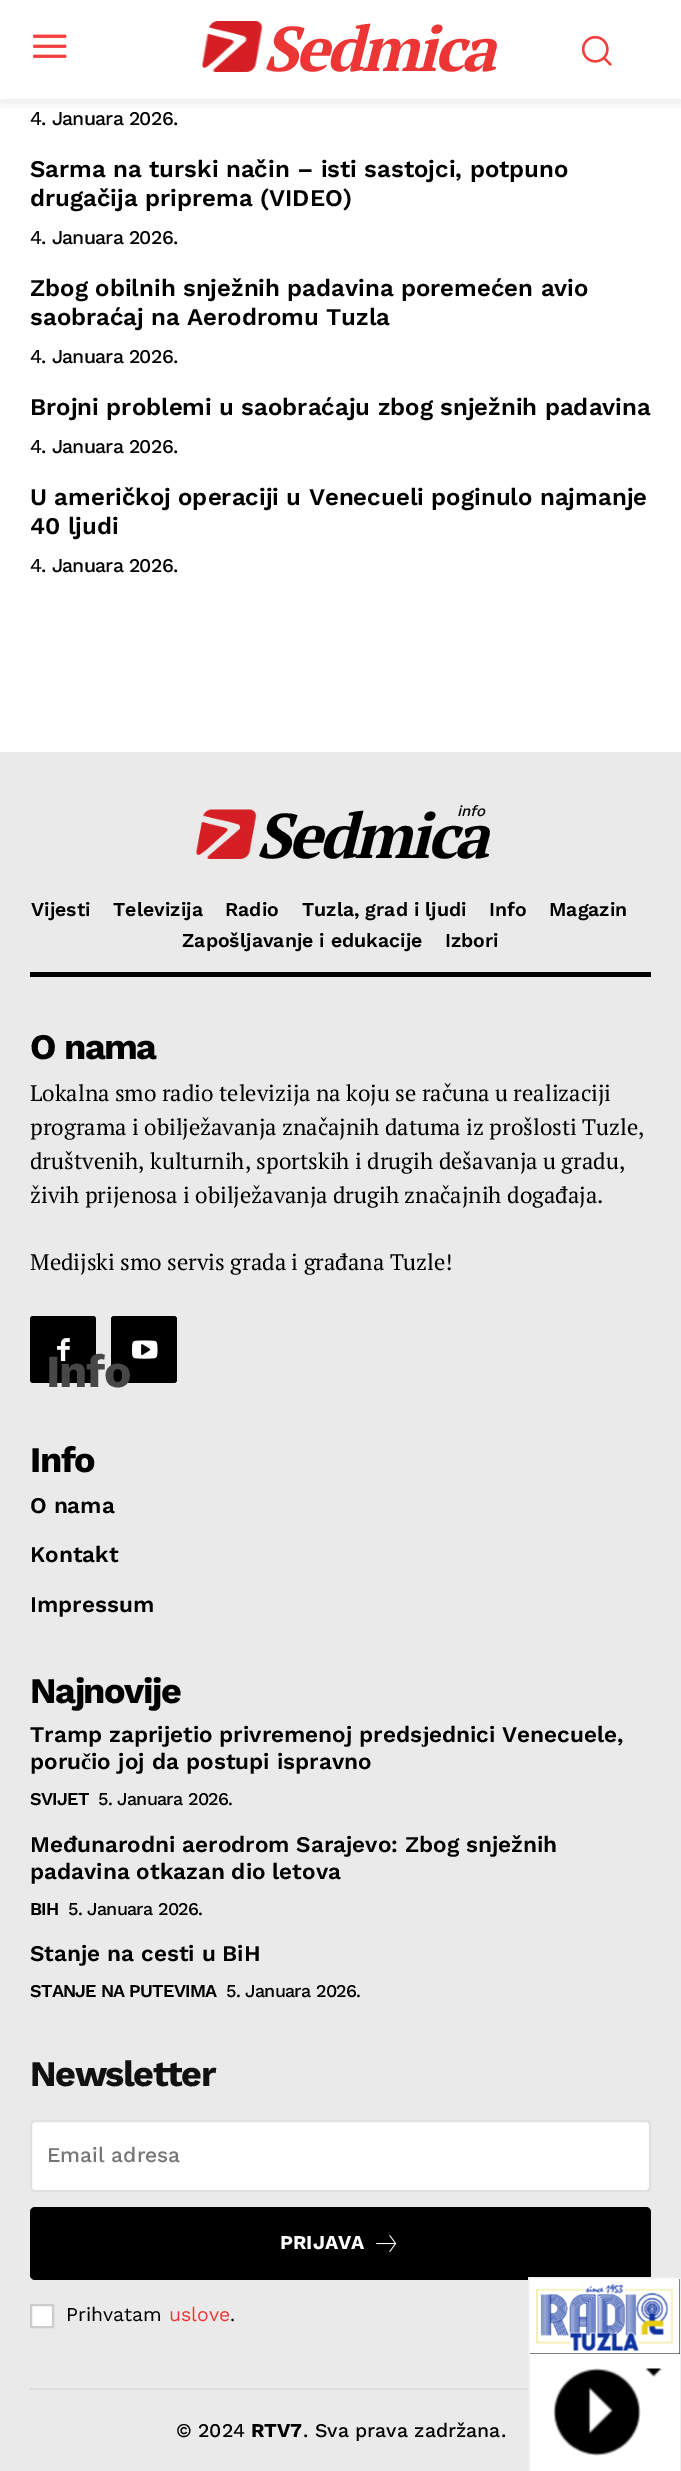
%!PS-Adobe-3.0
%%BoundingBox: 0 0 681 2471
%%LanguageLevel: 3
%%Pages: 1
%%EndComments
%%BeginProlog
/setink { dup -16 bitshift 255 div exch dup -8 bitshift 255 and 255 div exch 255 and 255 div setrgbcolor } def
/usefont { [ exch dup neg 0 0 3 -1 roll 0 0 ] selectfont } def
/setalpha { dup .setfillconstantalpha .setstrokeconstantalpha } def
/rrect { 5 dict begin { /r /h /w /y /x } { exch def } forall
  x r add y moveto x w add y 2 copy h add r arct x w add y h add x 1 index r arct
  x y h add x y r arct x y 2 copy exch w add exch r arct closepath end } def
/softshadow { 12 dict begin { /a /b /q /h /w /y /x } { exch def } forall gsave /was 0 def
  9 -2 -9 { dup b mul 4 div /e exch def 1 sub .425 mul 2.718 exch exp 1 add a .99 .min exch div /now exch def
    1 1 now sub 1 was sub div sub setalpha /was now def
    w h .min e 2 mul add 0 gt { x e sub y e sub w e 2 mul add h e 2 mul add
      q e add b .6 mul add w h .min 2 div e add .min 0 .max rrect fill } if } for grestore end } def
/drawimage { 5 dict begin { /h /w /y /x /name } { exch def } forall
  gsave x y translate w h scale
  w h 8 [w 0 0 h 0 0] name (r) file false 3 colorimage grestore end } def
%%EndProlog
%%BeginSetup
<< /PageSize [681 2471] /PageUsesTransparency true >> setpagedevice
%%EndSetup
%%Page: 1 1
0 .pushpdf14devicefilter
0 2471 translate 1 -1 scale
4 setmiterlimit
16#FFFFFF setink
0 0 681 2471 rectfill
(img1.raw) 33 34 34 24 drawimage
(img2.raw) 202 21 61 51 drawimage
(img3.raw) 581 35 31 31 drawimage
gsave
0 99 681 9 rectclip
16#000000 setink
0 3 681 99 0 7.5 0.09 softshadow
grestore
/PTSerif-BoldItalic 63 usefont
16#EC3535 setink
263 71 moveto -3 0 (Sedmica) ashow
/WorkSans-Medium 19.5 usefont
16#000000 setink
30 125 moveto -0.75 0 (4. Januara 2026.) ashow
/WorkSans-SemiBold 24 usefont
30 177 moveto (Sarma na turski način – isti sastojci, potpuno) show
30 206 moveto (drugačija priprema \(VIDEO\)) show
/WorkSans-Medium 19.5 usefont
30 244 moveto -0.75 0 (4. Januara 2026.) ashow
/WorkSans-SemiBold 24 usefont
30 296 moveto (Zbog obilnih snježnih padavina poremećen avio) show
30 325 moveto (saobraćaj na Aerodromu Tuzla) show
/WorkSans-Medium 19.5 usefont
30 363 moveto -0.75 0 (4. Januara 2026.) ashow
/WorkSans-SemiBold 24 usefont
30 415 moveto (Brojni problemi u saobraćaju zbog snježnih padavina) show
/WorkSans-Medium 19.5 usefont
30 453 moveto -0.75 0 (4. Januara 2026.) ashow
/WorkSans-SemiBold 24 usefont
30 505 moveto (U američkoj operaciji u Venecueli poginulo najmanje) show
30 534 moveto (40 ljudi) show
/WorkSans-Medium 19.5 usefont
30 572 moveto -0.75 0 (4. Januara 2026.) ashow
16#EAEAEA setink
0 752 681 1719 rectfill
16#000000 setink
30 972 621 5 rectfill
(img4.raw) 196 809 61 50 drawimage
/PTSerif-BoldItalic 63 usefont
256 858 moveto -3 0 (Sedmica) ashow
/WorkSans-MediumItalic 15 usefont
457 816 moveto (info) show
/WorkSans-SemiBold 19.5 usefont
[
    [(Vijesti) 31 916]
    [(Televizija) 113 916]
    [(Radio) 225 916]
    [(Tuzla, grad i ljudi) 302 916]
    [(Info) 489 916]
    [(Magazin) 549 916]
    [(Zapošljavanje i edukacije) 182 947]
    [(Izbori) 445 947]
] { aload pop moveto show } forall
/WorkSans-Bold 36 usefont
30 1059 moveto -1.5 0 (O nama) ashow
/PTSerif-Regular 22.5 usefont
[
    [(Lokalna smo radio televizija na koju se računa u realizaciji) 30 1101]
    [(programa i obilježavanja značajnih datuma iz prošlosti Tuzle,) 30 1135]
    [(društvenih, kulturnih, sportskih i drugih dešavanja u gradu,) 30 1169]
    [(živih prijenosa i obilježavanja drugih značajnih događaja.) 30 1203]
    [(Medijski smo servis grada i građana Tuzle!) 30 1270]
] { aload pop moveto show } forall
30 1316 66 67 3 rrect fill
(img5.raw) 57 1338 13 24 drawimage
111 1316 66 67 3 rrect fill
(img6.raw) 132 1340 26 19 drawimage
/WorkSans-Bold 36 usefont
30 1472 moveto -1.5 0 (Info) ashow
/WorkSans-SemiBold 22.5 usefont
[
    [(O nama) 30 1513]
    [(Kontakt) 30 1562]
    [(Impressum) 30 1612]
] { aload pop moveto show } forall
/WorkSans-Bold 36 usefont
30 1703 moveto -1.5 0 (Najnovije) ashow
/WorkSans-SemiBold 22.5 usefont
30 1742 moveto (Tramp zaprijetio privremenoj preds) show
/LiberationSerif-Bold 22.5 usefont
422 1742 moveto (ј) show
/WorkSans-SemiBold 22.5 usefont
429 1742 moveto (ednici Venecuele,) show
30 1769 moveto (poru) show
/LiberationSerif-Bold 22.5 usefont
81 1769 moveto (č) show
/WorkSans-SemiBold 22.5 usefont
91 1769 moveto 0.5 0 32 (io joj da postupi ispravno) widthshow
/WorkSans-SemiBold 18 usefont
30 1805 moveto -0.75 0 (SVIJET) ashow
/WorkSans-Medium 18 usefont
98 1805 moveto -0.75 0 (5. Januara 2026.) ashow
/WorkSans-SemiBold 22.5 usefont
30 1852 moveto (Međunarodni aerodrom Sarajevo: Zbog snježnih) show
30 1879 moveto (padavina otkazan dio letova) show
/WorkSans-SemiBold 18 usefont
30 1915 moveto -0.75 0 (BIH) ashow
/WorkSans-Medium 18 usefont
68 1915 moveto -0.75 0 (5. Januara 2026.) ashow
/WorkSans-SemiBold 22.5 usefont
30 1961 moveto (Stanje na cesti u BiH) show
/WorkSans-SemiBold 18 usefont
30 1997 moveto -0.75 0 (STANJE NA PUTEVIMA) ashow
/WorkSans-Medium 18 usefont
226 1997 moveto -0.75 0 (5. Januara 2026.) ashow
/WorkSans-Bold 36 usefont
16#111111 setink
30 2086 moveto -1.5 0 (Newsletter) ashow
16#FFFFFF setink
31 2121 619 70 4 rrect gsave fill grestore
16#E1E1E1 setink
2 setlinewidth
stroke
/WorkSans-Medium 21 usefont
16#757575 setink
47 2162 moveto (Email adresa) show
16#000000 setink
30 2207 621 73 5 rrect fill
/WorkSans-Bold 19.5 usefont
16#FFFFFF setink
280 2249 moveto (PRIJAVA) show
(img7.raw) 376 2235 21 17 drawimage
31 2305 moveto 53 2305 lineto 53 2327 lineto 31 2327 lineto closepath gsave fill grestore
16#CCCCCC setink
stroke
/WorkSans-Regular 19.5 usefont
16#000000 setink
66 2321 moveto (Prihvatam) show
16#EC3535 setink
169 2321 moveto (uslove) show
16#000000 setink
230 2321 moveto (.) show
16#DDDDDD setink
30 2388 498 2 rectfill
/WorkSans-Medium 19.5 usefont
16#000000 setink
176 2437 moveto (© 2024) show
/WorkSans-Bold 19.5 usefont
251 2437 moveto (RTV7) show
/WorkSans-Medium 19.5 usefont
303 2437 moveto (. Sva prava zadržana.) show
/WorkSans-Bold 46 usefont
16#474747 setink
46 1387 moveto -1.5 0 (Info) ashow
16#EFEFEF setink
529 2278 151 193 rectstroke
16#000000 setink
530 2279 150 75 rectfill
(img8.raw) 529 2278 151 76 drawimage
16#FFFFFF setink
530 2354 150 117 rectfill
(img9.raw) 553 2368 88 88 drawimage
(img10.raw) 645 2368 17 9 drawimage
.poppdf14devicefilter showpage
%%EOF
